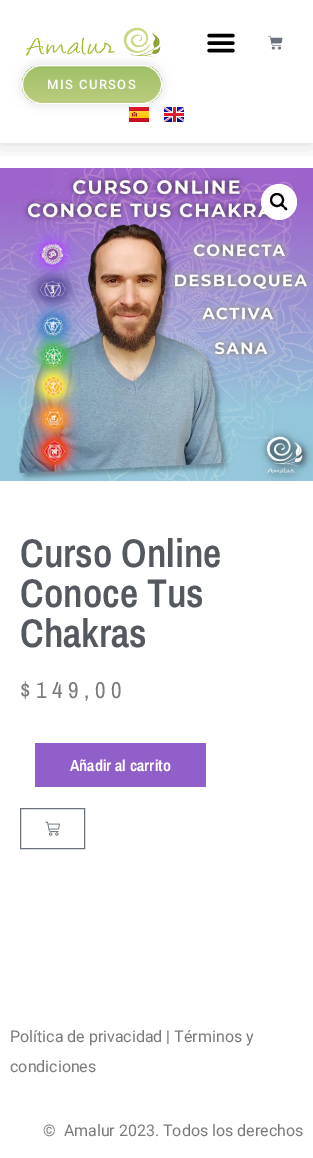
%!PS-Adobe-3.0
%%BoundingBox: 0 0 313 1158
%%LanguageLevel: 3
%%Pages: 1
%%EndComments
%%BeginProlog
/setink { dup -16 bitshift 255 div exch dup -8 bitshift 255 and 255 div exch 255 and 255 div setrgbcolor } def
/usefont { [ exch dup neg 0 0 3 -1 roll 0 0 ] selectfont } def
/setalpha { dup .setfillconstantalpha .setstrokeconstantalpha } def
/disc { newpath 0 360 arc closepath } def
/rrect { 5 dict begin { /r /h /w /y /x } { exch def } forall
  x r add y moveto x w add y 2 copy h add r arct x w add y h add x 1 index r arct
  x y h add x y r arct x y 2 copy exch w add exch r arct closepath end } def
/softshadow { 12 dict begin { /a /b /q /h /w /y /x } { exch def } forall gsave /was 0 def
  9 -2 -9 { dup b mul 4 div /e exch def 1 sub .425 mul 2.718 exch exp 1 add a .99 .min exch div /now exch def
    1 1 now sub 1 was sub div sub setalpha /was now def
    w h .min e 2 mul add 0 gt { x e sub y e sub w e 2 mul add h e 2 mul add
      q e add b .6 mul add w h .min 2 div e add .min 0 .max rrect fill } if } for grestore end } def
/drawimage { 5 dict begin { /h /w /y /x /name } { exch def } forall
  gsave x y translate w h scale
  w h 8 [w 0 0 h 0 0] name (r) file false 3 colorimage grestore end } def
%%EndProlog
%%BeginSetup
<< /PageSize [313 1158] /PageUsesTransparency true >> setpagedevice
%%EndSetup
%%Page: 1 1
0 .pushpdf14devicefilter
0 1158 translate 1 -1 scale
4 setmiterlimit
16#FFFFFF setink
0 0 313 1158 rectfill
(img6.raw) 0 168 313 313 drawimage
gsave
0 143 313 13 rectclip
16#000000 setink
0 0 313 143 0 12 0.15 softshadow
grestore
(img1.raw) 25 27 136 32 drawimage
(img2.raw) 207 33 28 20 drawimage
(img3.raw) 268 35 15 15 drawimage
16#000000 setink
22 65 140 39 19.5 5.5 0.12 softshadow
gsave
22 65 140 39 19.5 rrect clip newpath
gsave 22 66 moveto 162 66 lineto 162 103 lineto 22 103 lineto closepath clip newpath
<< /ShadingType 2 /ColorSpace /DeviceRGB /Coords [92 66 92 103] /Extend [true true] /Function << /FunctionType 2 /Domain [0 1] /C0 [0.624 0.753 0.404] /C1 [0.737 0.8 0.494] /N 1 >> >> shfill grestore
grestore
16#FFFFFF setink
22.5 65.5 139 38 19 rrect stroke
/Roboto-Medium 13 usefont
47 89 moveto 1.4 0 (MIS CURSOS) ashow
(img4.raw) 129 107 20 15 drawimage
(img5.raw) 164 107 20 15 drawimage
279 202 18 disc fill
16#000000 setink
2 setlinewidth
277 200 6 disc stroke
281 204 moveto 282.5 203 284 205.5 284.5 206.5 curveto 285.5 207 288 208.5 287 210 curveto 285.5 211 284 208.5 283.5 207.5 curveto 282.5 207 280 205.5 281 204 curveto closepath fill
/ArchivoNarrow-SemiBold 40 usefont
16#54595F setink
[
    [(Curso Online) 20 567]
    [(Conoce Tus) 20 607]
    [(Chakras) 20 647]
] { aload pop moveto show } forall
/ArchivoNarrow-Regular 23 usefont
16#7A7A7A setink
20 698 moveto 5.5 0 ($149,00) ashow
16#915FCA setink
35 743 171 44 rectfill
/ArchivoNarrow-Bold 16 usefont
16#FFFFFF setink
70 771 moveto (Añadir al carrito) show
16#69727D setink
1 setlinewidth
20.5 808.5 64 40 rectstroke
(img7.raw) 45 821 15 15 drawimage
/Roboto-Regular 16 usefont
16#7A7A7A setink
[
    [(Política de privacidad | Términos y) 10 1042]
    [(condiciones) 10 1072]
    [(©  Amalur 2023. Todos los derechos) 43 1136]
] { aload pop moveto show } forall
.poppdf14devicefilter showpage
%%EOF
